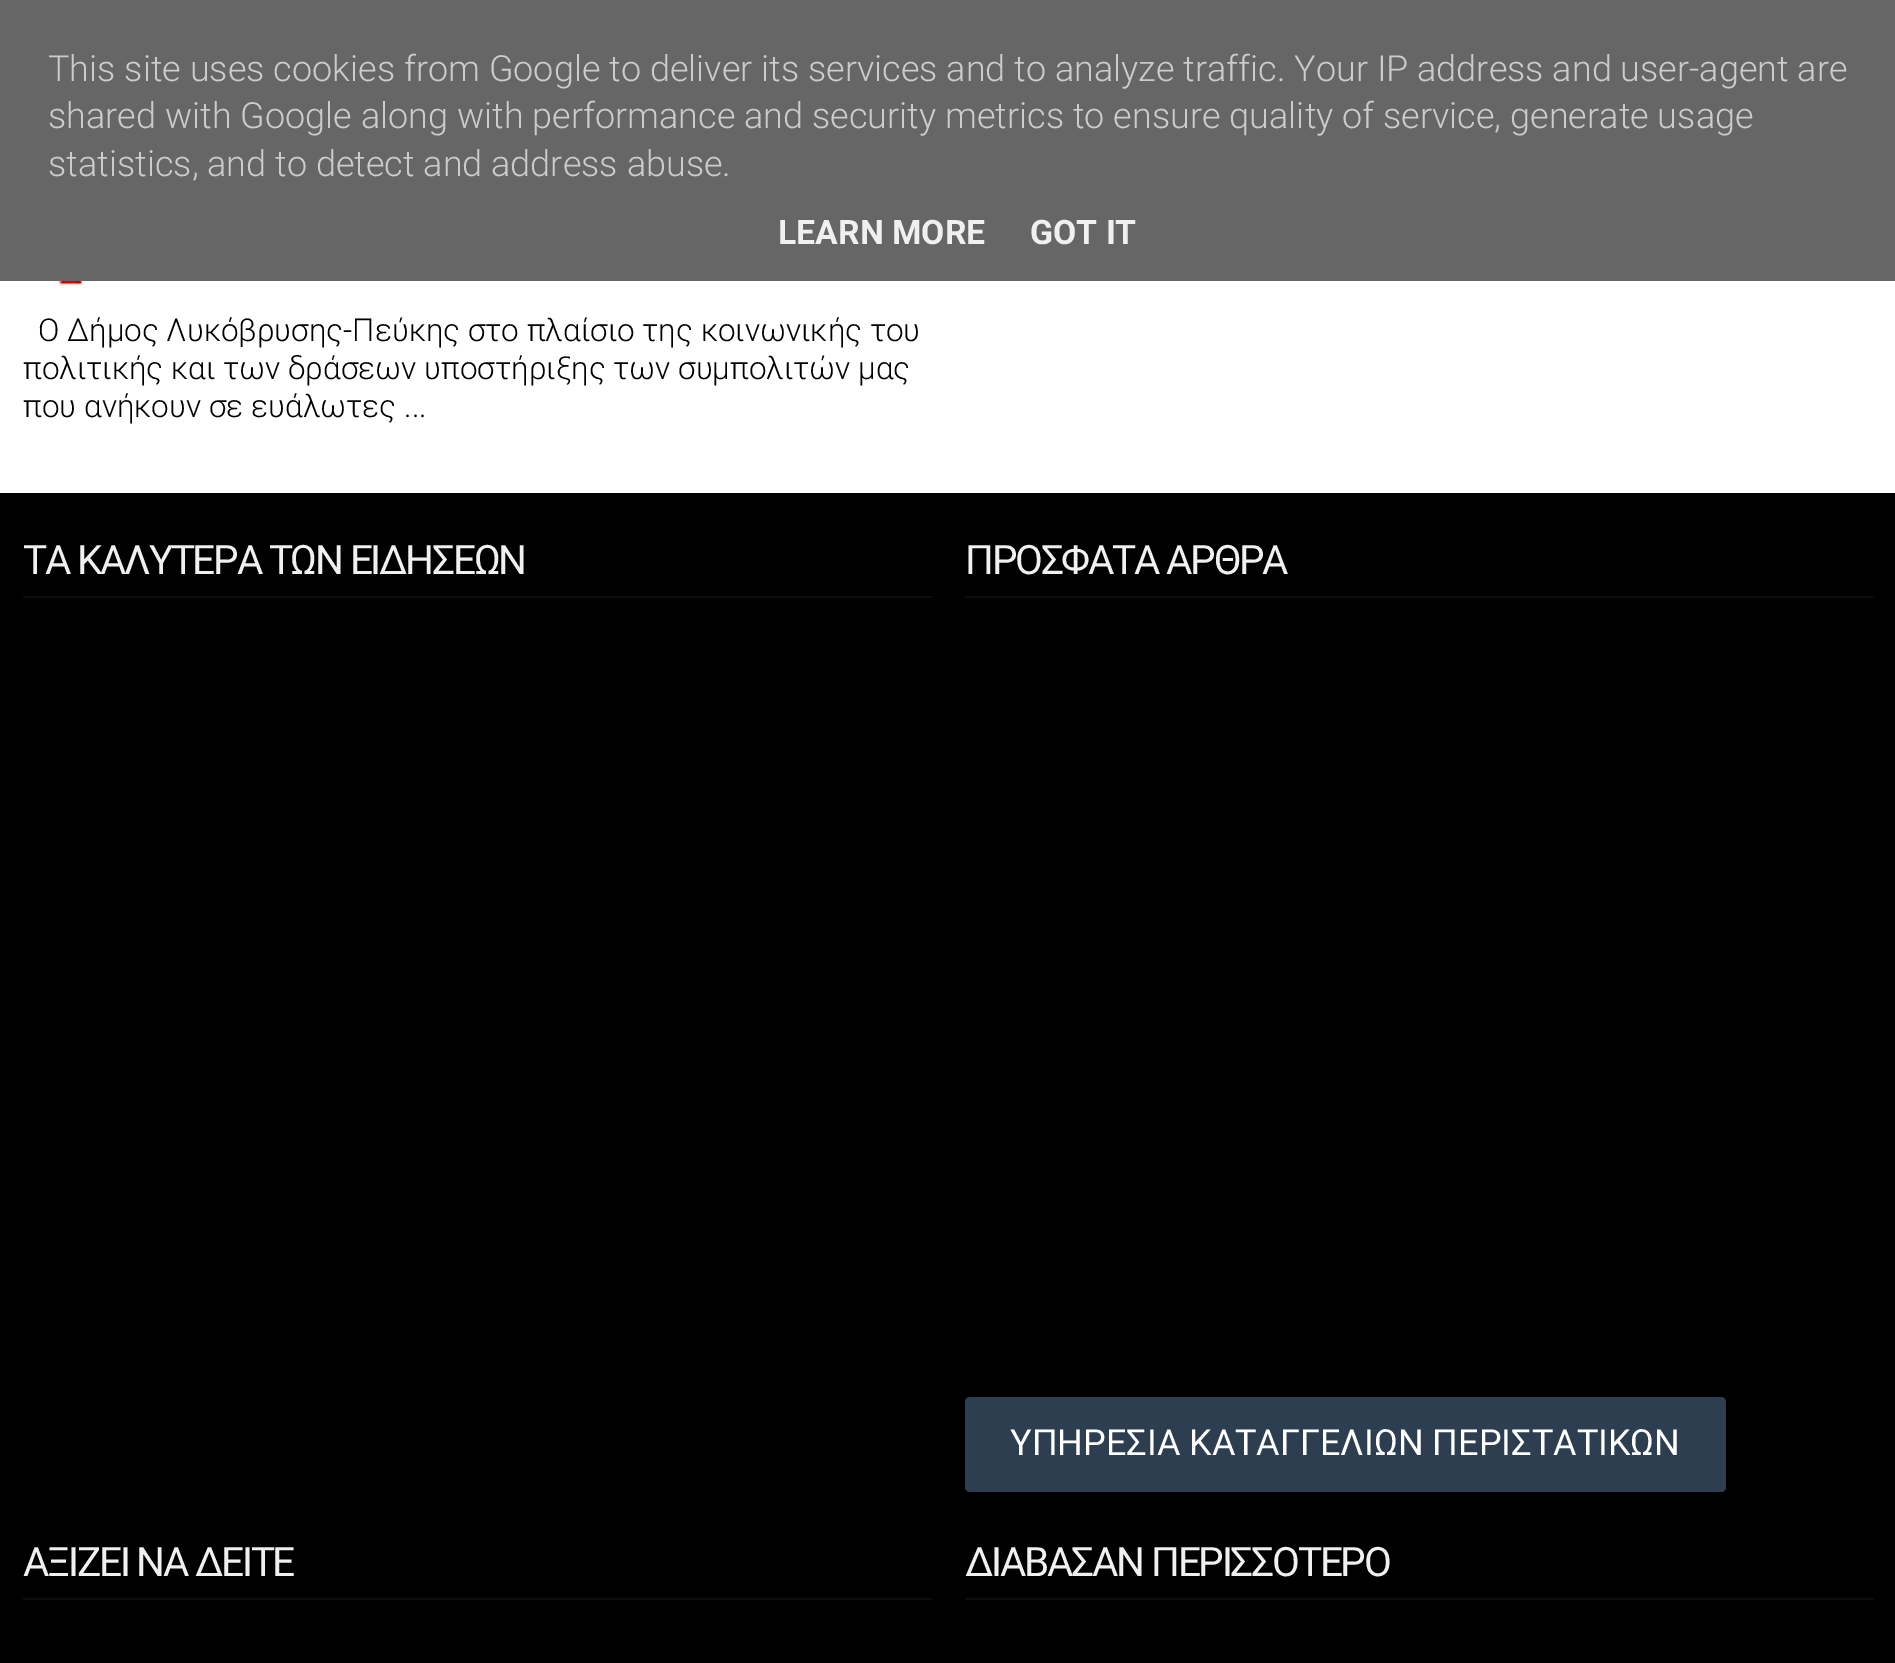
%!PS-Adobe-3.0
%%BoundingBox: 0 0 1895 1663
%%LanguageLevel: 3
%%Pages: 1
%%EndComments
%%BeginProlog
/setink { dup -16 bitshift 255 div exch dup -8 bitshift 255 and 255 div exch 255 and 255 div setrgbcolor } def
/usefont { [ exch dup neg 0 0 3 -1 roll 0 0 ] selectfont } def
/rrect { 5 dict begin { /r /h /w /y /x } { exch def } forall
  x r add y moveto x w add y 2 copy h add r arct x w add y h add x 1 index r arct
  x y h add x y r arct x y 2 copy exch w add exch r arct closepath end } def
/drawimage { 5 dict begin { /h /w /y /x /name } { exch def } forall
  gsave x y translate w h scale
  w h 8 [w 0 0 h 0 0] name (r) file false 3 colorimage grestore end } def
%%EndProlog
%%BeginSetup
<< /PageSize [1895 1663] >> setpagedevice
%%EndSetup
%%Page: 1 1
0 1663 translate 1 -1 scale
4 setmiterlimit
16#FFFFFF setink
0 0 1895 1663 rectfill
16#666666 setink
0 0 1895 281 rectfill
/Roboto-Light 36 usefont
16#CCCCCC setink
[
    [(This site uses cookies from Google to deliver its services and to analyze traffic. Your IP address and user-agent are) 48 81]
    [(shared with Google along with performance and security metrics to ensure quality of service, generate usage) 48 128]
    [(statistics, and to detect and address abuse.) 48 176]
] { aload pop moveto show } forall
/Roboto-Bold 33.75 usefont
16#F0F0F0 setink
778 244 moveto (LEARN MORE) show
1030 244 moveto (GOT IT) show
(img1.raw) 22 281 147 5 drawimage
/Roboto-Light 31.5 usefont
16#000000 setink
[
    [(Ο Δήμος Λυκόβρυσης-Πεύκης στο πλαίσιο της κοινωνικής του) 38 341]
    [(πολιτικής και των δράσεων υποστήριξης των συμπολιτών μας) 23 379]
    [(που ανήκουν σε ευάλωτες ...) 23 417]
] { aload pop moveto show } forall
0 493 1895 1170 rectfill
16#0D0D0D setink
23 596 909 2 rectfill
/Roboto-Regular 40.5 usefont
16#F0F0F0 setink
23 574 moveto -2.25 0 (ΤΑ ΚΑΛΥΤΕΡΑ ΤΩΝ ΕΙΔΗΣΕΩΝ) ashow
16#0D0D0D setink
965 596 909 2 rectfill
16#F0F0F0 setink
965 574 moveto -2.25 0 (ΠΡΟΣΦΑΤΑ ΑΡΘΡΑ) ashow
16#2C3E50 setink
965 1397 761 95 5 rrect fill
/Roboto-Regular 36 usefont
16#FFFFFF setink
1010 1455 moveto (ΥΠΗΡΕΣΙΑ ΚΑΤΑΓΓΕΛΙΩΝ ΠΕΡΙΣΤΑΤΙΚΩΝ) show
16#0D0D0D setink
23 1598 909 2 rectfill
/Roboto-Regular 40.5 usefont
16#F0F0F0 setink
23 1576 moveto -2.25 0 (ΑΞΙΖΕΙ ΝΑ ΔΕΙΤΕ) ashow
16#0D0D0D setink
965 1598 909 2 rectfill
16#F0F0F0 setink
965 1576 moveto -2.25 0 (ΔΙΑΒΑΣΑΝ ΠΕΡΙΣΣΟΤΕΡΟ) ashow
showpage
%%EOF
